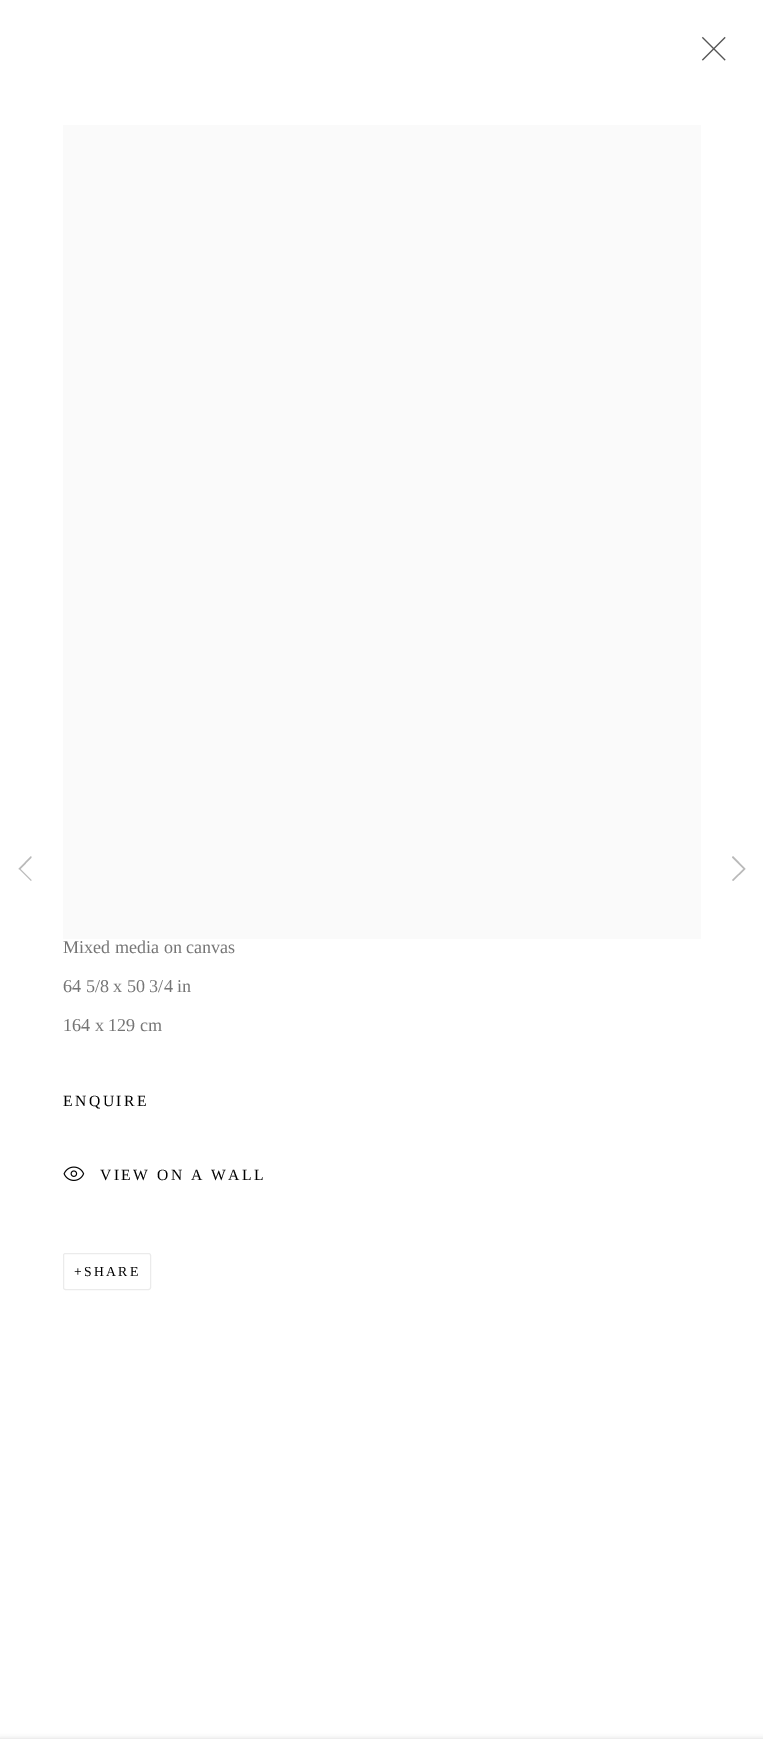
%!PS-Adobe-3.0
%%BoundingBox: 0 0 763 1739
%%LanguageLevel: 3
%%Pages: 1
%%EndComments
%%BeginProlog
/setink { dup -16 bitshift 255 div exch dup -8 bitshift 255 and 255 div exch 255 and 255 div setrgbcolor } def
/usefont { [ exch dup neg 0 0 3 -1 roll 0 0 ] selectfont } def
/setalpha { dup .setfillconstantalpha .setstrokeconstantalpha } def
/rrect { 5 dict begin { /r /h /w /y /x } { exch def } forall
  x r add y moveto x w add y 2 copy h add r arct x w add y h add x 1 index r arct
  x y h add x y r arct x y 2 copy exch w add exch r arct closepath end } def
/softshadow { 12 dict begin { /a /b /q /h /w /y /x } { exch def } forall gsave /was 0 def
  9 -2 -9 { dup b mul 4 div /e exch def 1 sub .425 mul 2.718 exch exp 1 add a .99 .min exch div /now exch def
    1 1 now sub 1 was sub div sub setalpha /was now def
    w h .min e 2 mul add 0 gt { x e sub y e sub w e 2 mul add h e 2 mul add
      q e add b .6 mul add w h .min 2 div e add .min 0 .max rrect fill } if } for grestore end } def
/drawimage { 5 dict begin { /h /w /y /x /name } { exch def } forall
  gsave x y translate w h scale
  w h 8 [w 0 0 h 0 0] name (r) file false 3 colorimage grestore end } def
%%EndProlog
%%BeginSetup
<< /PageSize [763 1739] /PageUsesTransparency true >> setpagedevice
%%EndSetup
%%Page: 1 1
0 .pushpdf14devicefilter
0 1739 translate 1 -1 scale
4 setmiterlimit
16#FFFFFF setink
0 0 763 1739 rectfill
(img1.raw) 701 36 25 25 drawimage
16#B9B9B9 setink
19.5 869.5 moveto 31 881 lineto 31.5 880 lineto 20.5 869 lineto 31.5 857.5 lineto 31 856 lineto 18.5 869 lineto closepath fill
745.5 869 moveto 733 856 lineto 732 857.5 lineto 743.5 869 lineto 732 880 lineto 733 881 lineto closepath fill
16#FAFAFA setink
63 125 638 814 rectfill
/LiberationSerif-Regular 18.1 usefont
16#757575 setink
[
    [(Mixed media on canvas) 63 953]
    [(64 5/8 x 50 3/4 in) 63 992]
    [(164 x 129 cm) 63 1031]
] { aload pop moveto show } forall
/LiberationSerif-Regular 15.6 usefont
16#010101 setink
63 1106 moveto 2.5 0 (ENQUIRE) ashow
(img2.raw) 63 1166 22 15 drawimage
100 1180 moveto 2.5 0 (VIEW ON A WALL) ashow
16#EBEBEB setink
63.5 1253.5 87 36 2 rrect stroke
/LiberationSerif-Regular 13.75 usefont
16#010101 setink
74 1276 moveto 2.25 0 (+SHARE) ashow
16#000000 setink
0 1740 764 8 0 3 0.23 softshadow
.poppdf14devicefilter showpage
%%EOF
